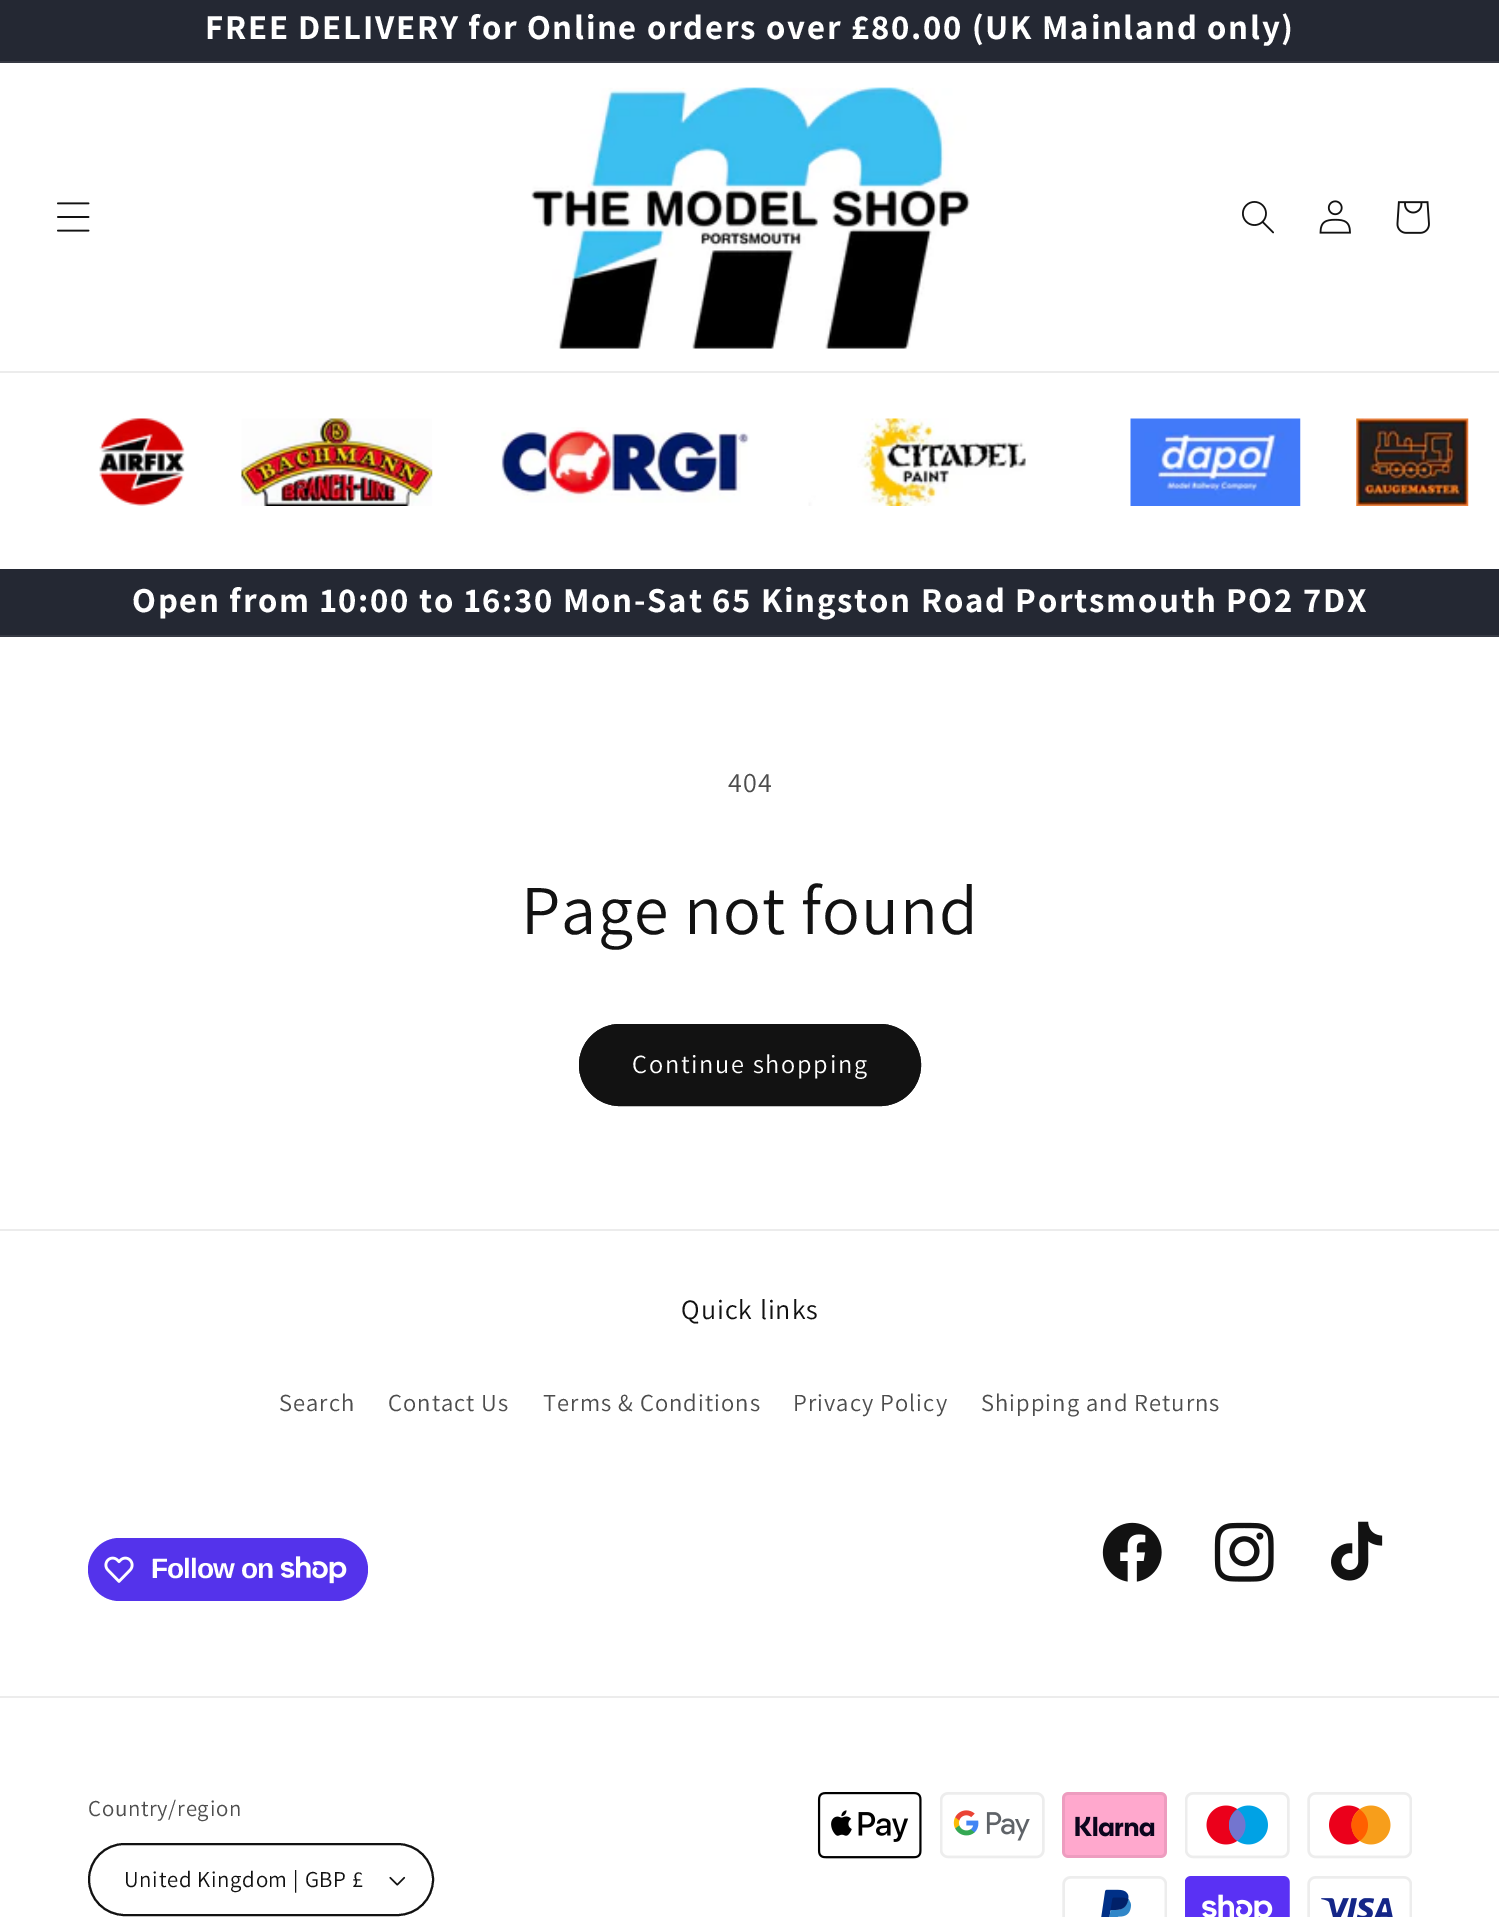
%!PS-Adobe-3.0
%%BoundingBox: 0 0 1499 1917
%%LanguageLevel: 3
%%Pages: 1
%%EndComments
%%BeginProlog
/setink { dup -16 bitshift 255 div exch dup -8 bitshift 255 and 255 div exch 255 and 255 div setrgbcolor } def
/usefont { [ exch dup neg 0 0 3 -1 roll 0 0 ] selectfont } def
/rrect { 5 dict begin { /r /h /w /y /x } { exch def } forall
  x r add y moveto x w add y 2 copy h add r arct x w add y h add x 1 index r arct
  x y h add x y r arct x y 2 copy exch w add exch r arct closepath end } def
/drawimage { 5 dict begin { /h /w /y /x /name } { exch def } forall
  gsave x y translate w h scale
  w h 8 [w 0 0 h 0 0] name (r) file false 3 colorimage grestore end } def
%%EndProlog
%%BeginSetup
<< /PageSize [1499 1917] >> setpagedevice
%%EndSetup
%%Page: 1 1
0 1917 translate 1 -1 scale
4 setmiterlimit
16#FFFFFF setink
0 0 1499 1917 rectfill
16#242833 setink
0 0 1499 61 rectfill
16#363943 setink
0 61 1499 2 rectfill
/Assistant-Bold 35 usefont
16#FFFFFF setink
205 39 moveto 1.75 0 (FREE DELIVERY for Online orders over £80.00 \(UK Mainland only\)) ashow
16#ECECEC setink
0 371 1499 2 rectfill
(img1.raw) 57 202 33 30 drawimage
(img2.raw) 531 87 439 262 drawimage
(img3.raw) 1242 201 32 33 drawimage
(img4.raw) 1319 200 32 34 drawimage
(img5.raw) 1396 201 34 33 drawimage
(img6.raw) 99 418 86 88 drawimage
(img7.raw) 241 418 192 88 drawimage
(img8.raw) 501 427 249 76 drawimage
(img9.raw) 808 418 218 88 drawimage
(img10.raw) 1130 418 171 88 drawimage
(img11.raw) 1356 418 113 88 drawimage
16#242833 setink
0 569 1499 66 rectfill
16#363943 setink
0 635 1499 2 rectfill
16#FFFFFF setink
132 612 moveto 1.75 0 (Open from 10:00 to 16:30 Mon-Sat 65 Kingston Road Portsmouth PO2 7DX) ashow
/Assistant-Regular 28 usefont
16#4D4D4D setink
728 792 moveto 1.05 0 (404) ashow
/Assistant-Regular 70 usefont
16#121212 setink
521 934 moveto 1.05 0 (Page not found) ashow
579 1024 342 82 41 rrect fill
2 setlinewidth
580 1025 340 80 40 rrect stroke
/Assistant-Regular 26.25 usefont
16#FFFFFF setink
632 1073 moveto 1.75 0 (Continue shopping) ashow
16#ECECEC setink
0 1229 1499 2 rectfill
/Assistant-Regular 28 usefont
16#121212 setink
681 1319 moveto 1.05 0 (Quick links) ashow
/Assistant-Regular 24.5 usefont
16#4D4D4D setink
279 1411 moveto 1.05 0 (Search) ashow
388 1411 moveto 1.05 0 (Contact Us) ashow
543 1411 moveto 1.05 0 (Terms & Conditions) ashow
793 1411 moveto 1.05 0 (Privacy Policy) ashow
981 1411 moveto 1.05 0 (Shipping and Returns) ashow
16#5433EB setink
88 1538 280 63 31.5 rrect fill
(img12.raw) 104 1556 30 27 drawimage
/LiberationSans-Bold 28 usefont
16#FFFFFF setink
151 1578 moveto -0.9 0 (Follow on) ashow
(img13.raw) 280 1556 67 28 drawimage
(img14.raw) 1102 1522 60 60 drawimage
(img15.raw) 1214 1522 60 60 drawimage
(img16.raw) 1331 1521 52 60 drawimage
16#ECECEC setink
0 1696 1499 2 rectfill
/Assistant-Regular 22.75 usefont
16#4D4D4D setink
88 1816 moveto 0.7 0 (Country/region) ashow
(img17.raw) 389 1876 17 10 drawimage
16#121212 setink
89 1844 344 71 35.5 rrect stroke
124 1887 moveto 0.7 0 (United Kingdom | GBP £) ashow
(img18.raw) 817 1792 105 67 drawimage
(img19.raw) 940 1792 105 67 drawimage
(img20.raw) 1062 1792 105 66 drawimage
(img21.raw) 1185 1792 105 67 drawimage
(img22.raw) 1307 1792 105 67 drawimage
(img23.raw) 1062 1876 105 41 drawimage
(img24.raw) 1185 1876 105 41 drawimage
(img25.raw) 1307 1876 105 41 drawimage
showpage
%%EOF
